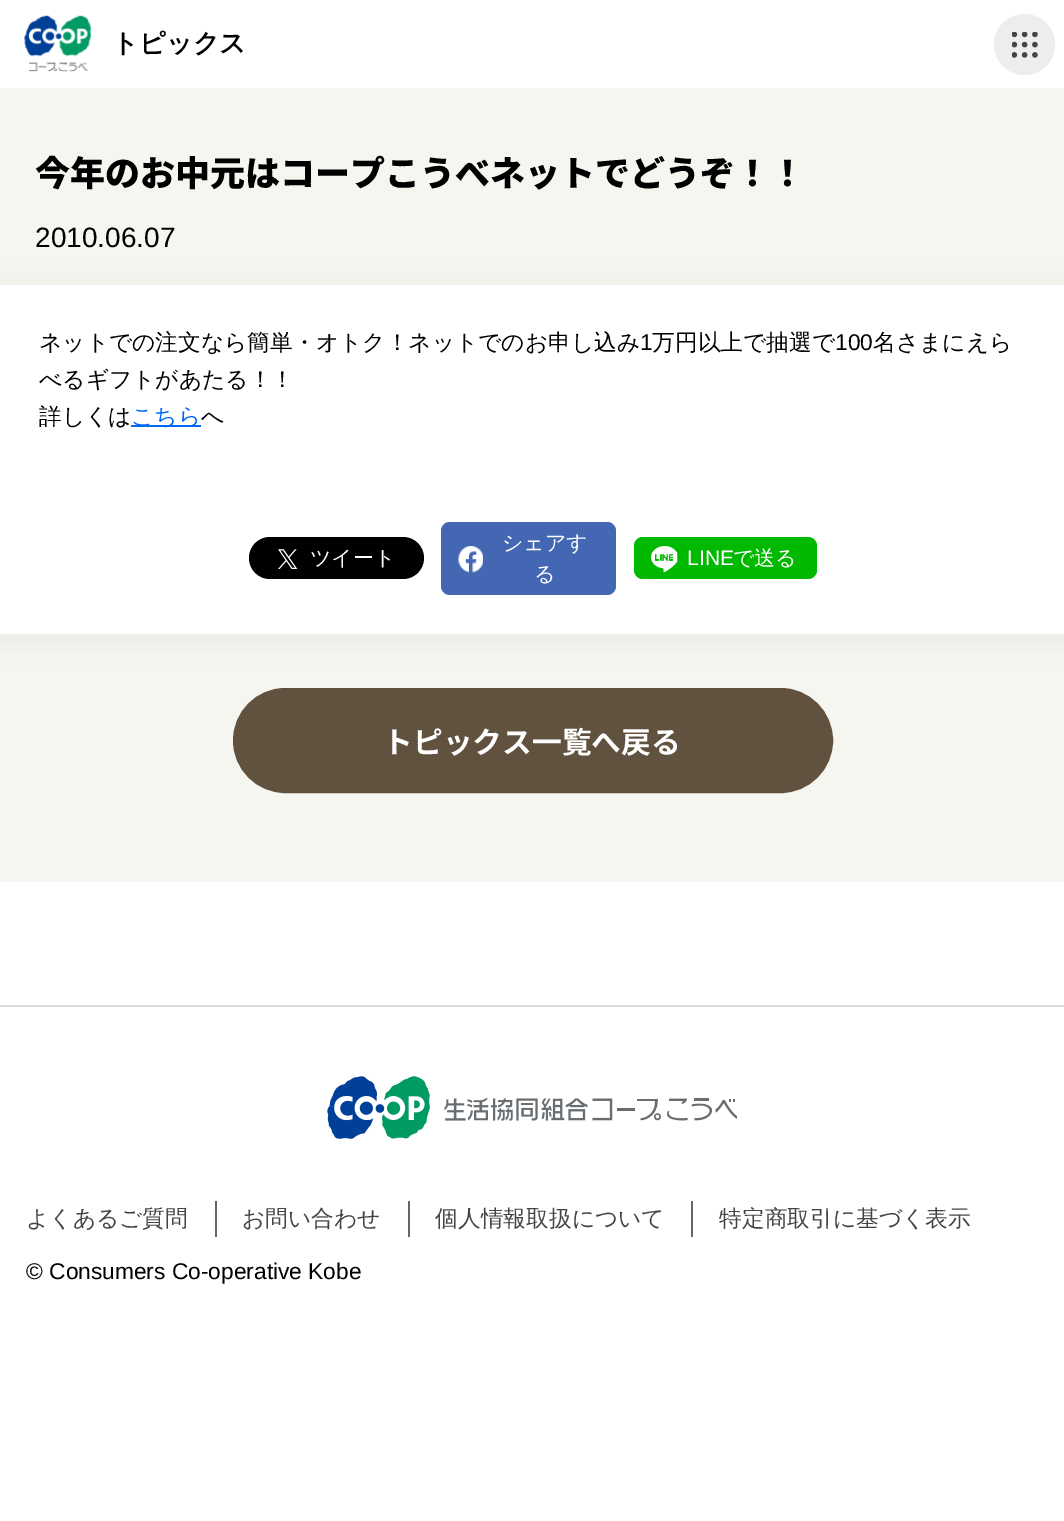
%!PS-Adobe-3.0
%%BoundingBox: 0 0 1064 1521
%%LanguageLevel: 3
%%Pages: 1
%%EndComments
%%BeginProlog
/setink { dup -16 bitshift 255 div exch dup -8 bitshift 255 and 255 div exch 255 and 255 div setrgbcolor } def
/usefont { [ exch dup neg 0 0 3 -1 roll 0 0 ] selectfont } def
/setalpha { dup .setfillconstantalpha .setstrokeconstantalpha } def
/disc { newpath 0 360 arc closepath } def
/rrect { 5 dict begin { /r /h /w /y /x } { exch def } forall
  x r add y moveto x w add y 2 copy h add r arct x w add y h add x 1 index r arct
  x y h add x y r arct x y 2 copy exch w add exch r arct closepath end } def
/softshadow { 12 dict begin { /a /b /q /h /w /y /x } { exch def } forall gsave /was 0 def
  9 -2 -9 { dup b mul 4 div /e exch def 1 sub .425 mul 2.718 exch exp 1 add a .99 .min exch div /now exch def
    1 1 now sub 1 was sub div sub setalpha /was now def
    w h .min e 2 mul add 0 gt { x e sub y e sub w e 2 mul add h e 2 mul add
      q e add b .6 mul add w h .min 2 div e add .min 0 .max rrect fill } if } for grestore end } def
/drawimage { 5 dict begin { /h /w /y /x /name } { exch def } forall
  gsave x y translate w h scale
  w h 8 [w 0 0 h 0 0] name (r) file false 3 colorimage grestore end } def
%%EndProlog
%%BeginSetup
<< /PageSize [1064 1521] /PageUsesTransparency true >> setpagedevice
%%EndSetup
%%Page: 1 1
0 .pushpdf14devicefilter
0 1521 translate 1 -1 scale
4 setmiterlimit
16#FFFFFF setink
0 0 1064 1521 rectfill
16#F6F6F1 setink
0 88 1064 794 rectfill
(img1.raw) 24 15 67 57 drawimage
/WenQuanYiZenHei-Bold 26.25 usefont
16#000000 setink
112 52 moveto (トピックス) show
16#EDEDED setink
1024.5 44.5 30.5 disc fill
(img2.raw) 1012 32 26 26 drawimage
/NotoSansJP-Black 35 usefont
16#000000 setink
35 186 moveto (今年のお中元はコープこうべネットでどうぞ！！) show
/LiberationSans-Regular 28 usefont
35 247 moveto (2010.06.07) show
0 291 1064 348 0 17.5 0.05 softshadow
16#FFFFFF setink
0 285 1064 349 rectfill
/WenQuanYiZenHei-Medium 22.75 usefont
16#000000 setink
39 350 moveto (ネットでの注文なら簡単・オトク！ネットでのお申し込み) show
/LiberationSans-Regular 22.75 usefont
640 350 moveto (1) show
/WenQuanYiZenHei-Medium 22.75 usefont
652 350 moveto (万円以上で抽選で) show
/LiberationSans-Regular 22.75 usefont
835 350 moveto (100) show
/WenQuanYiZenHei-Medium 22.75 usefont
[
    [(名さまにえら) 873 350]
    [(べるギフトがあたる！！) 39 387]
    [(詳しくは) 39 424]
] { aload pop moveto show } forall
16#0068F7 setink
131 425 70 2 rectfill
131 424 moveto (こちら) show
16#000000 setink
201 424 moveto (へ) show
249 537 175 42 21 rrect fill
(img3.raw) 278 549 20 20 drawimage
/WenQuanYiZenHei-Medium 21 usefont
16#FFFFFF setink
310 565 moveto (ツイート) show
16#4367B3 setink
441 522 175 73 9 rrect fill
16#FFFFFF setink
502 550 moveto (シェアす) show
(img4.raw) 458 546 25 27 drawimage
534 581 moveto (る) show
16#00B900 setink
634 537 183 42 9 rrect fill
(img5.raw) 651 546 27 27 drawimage
/LiberationSans-Regular 21 usefont
16#FFFFFF setink
687 565 moveto (LINE) show
/WenQuanYiZenHei-Medium 21 usefont
733 565 moveto (で送る) show
16#60523F setink
235 690 596 101 50.5 rrect gsave fill grestore
4 setlinewidth
stroke
/NotoSansJP-Bold 29.75 usefont
16#FFFFFF setink
383 753 moveto (トピックス一覧へ戻る) show
16#DBDBDB setink
0 1005 1064 2 rectfill
(img6.raw) 327 1076 410 63 drawimage
16#666666 setink
215 1201 2 36 rectfill
/WenQuanYiZenHei-Medium 22.75 usefont
16#444444 setink
26 1226 moveto (よくあるご質問) show
16#666666 setink
408 1201 2 36 rectfill
16#444444 setink
242 1226 moveto (お問い合わせ) show
16#666666 setink
691 1201 2 36 rectfill
16#444444 setink
435 1226 moveto (個人情報取扱について) show
719 1226 moveto (特定商取引に基づく表示) show
/LiberationSans-Regular 22.75 usefont
16#000000 setink
26 1279 moveto (© Consumers Co-operative Kobe) show
.poppdf14devicefilter showpage
%%EOF
